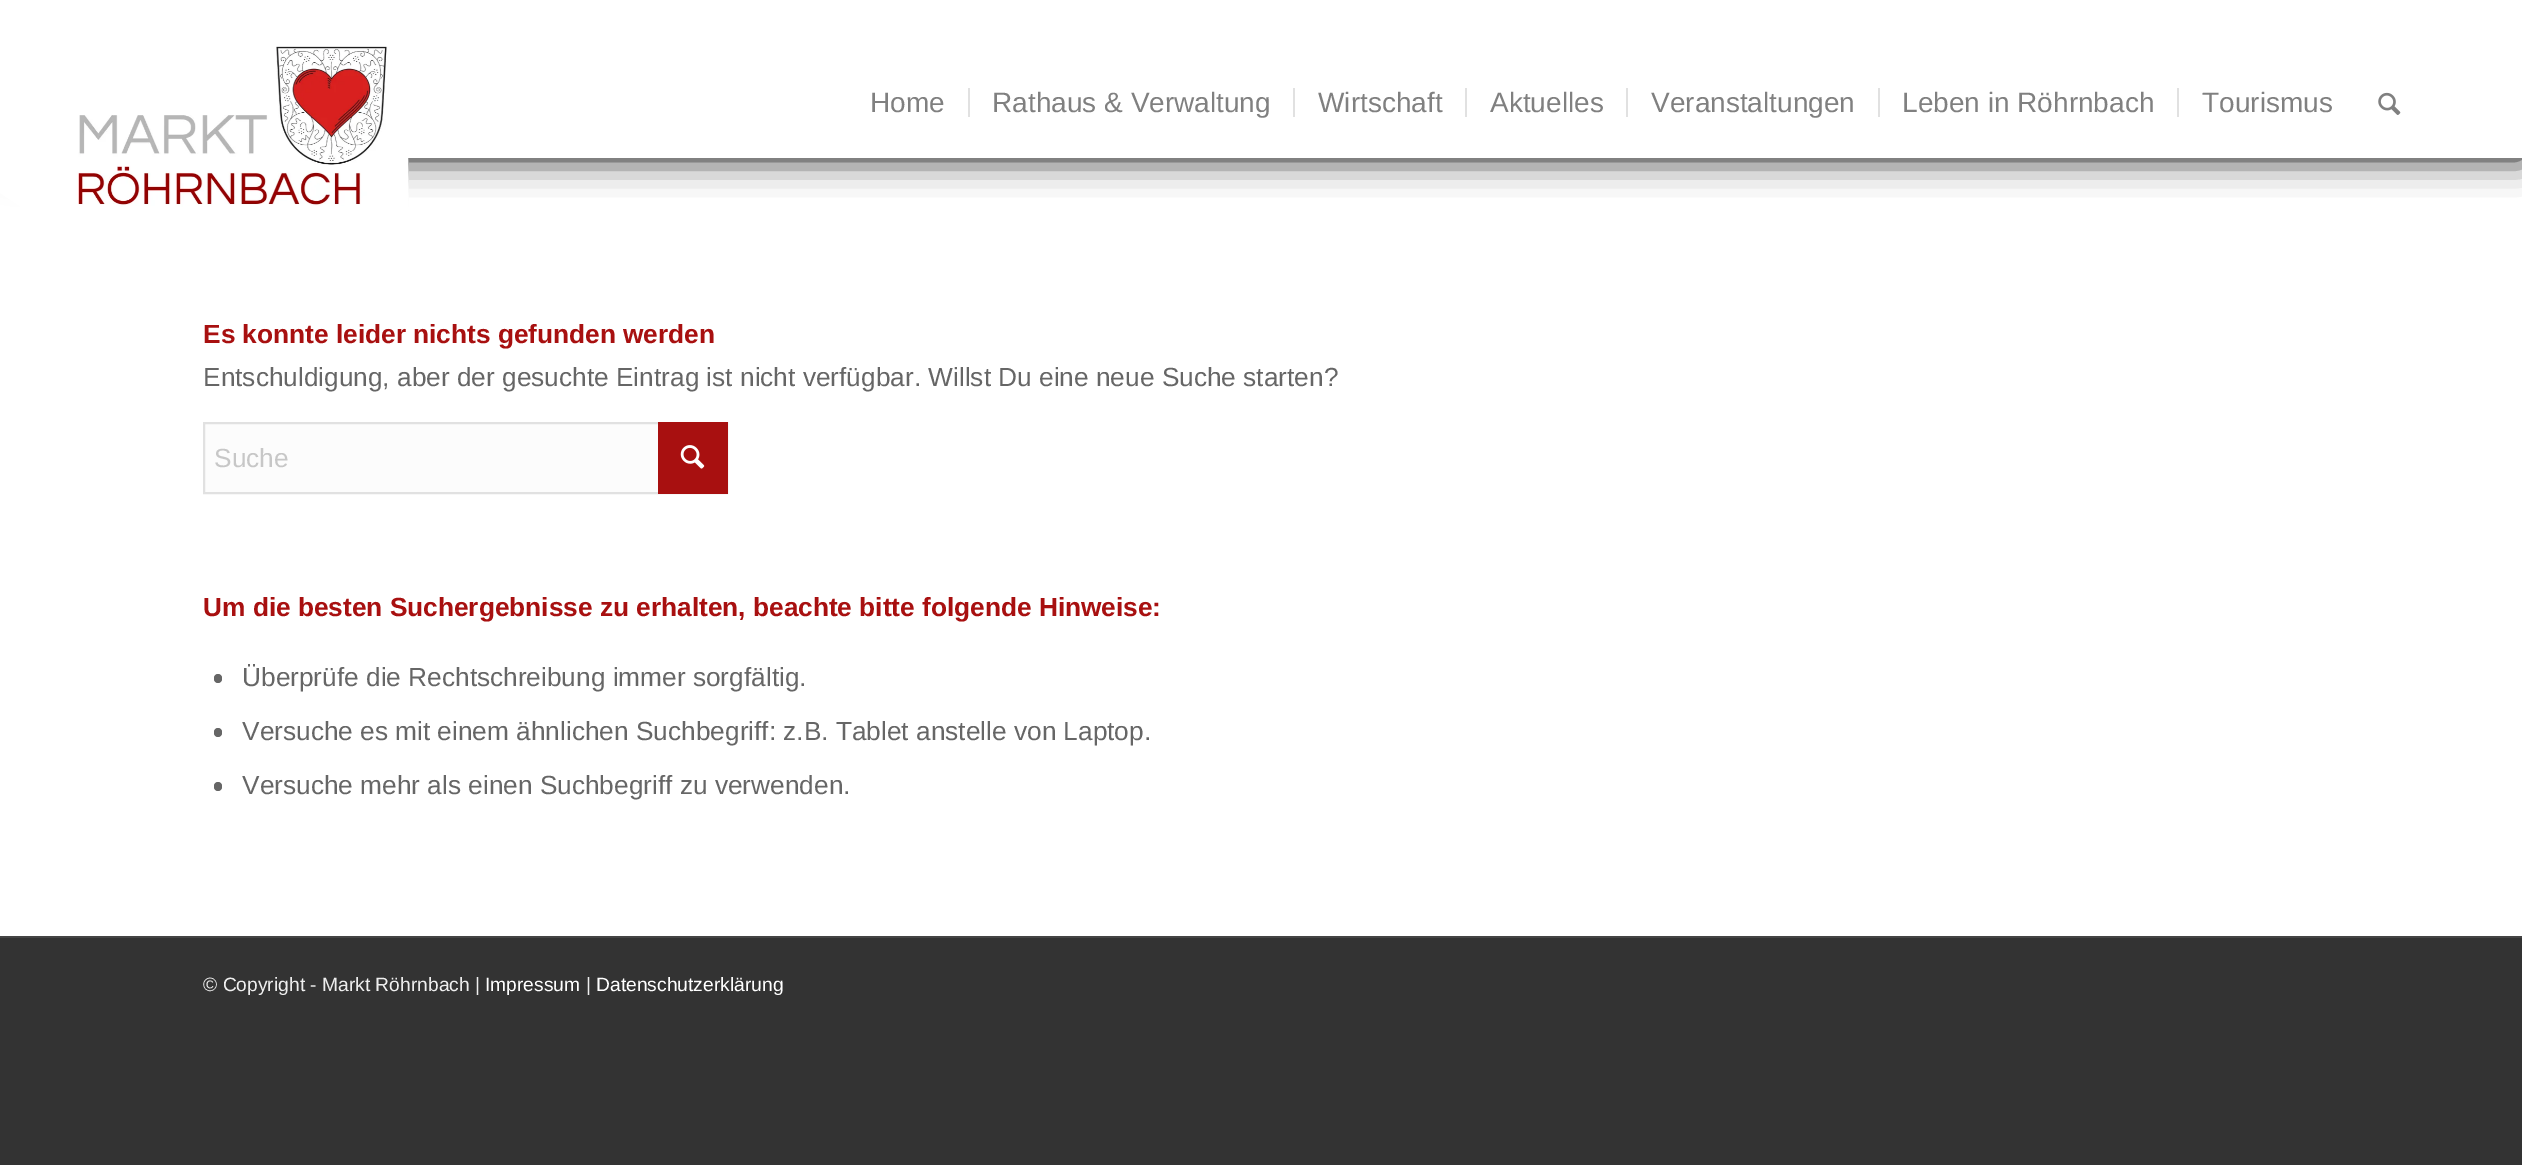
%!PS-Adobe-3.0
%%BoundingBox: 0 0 2522 1165
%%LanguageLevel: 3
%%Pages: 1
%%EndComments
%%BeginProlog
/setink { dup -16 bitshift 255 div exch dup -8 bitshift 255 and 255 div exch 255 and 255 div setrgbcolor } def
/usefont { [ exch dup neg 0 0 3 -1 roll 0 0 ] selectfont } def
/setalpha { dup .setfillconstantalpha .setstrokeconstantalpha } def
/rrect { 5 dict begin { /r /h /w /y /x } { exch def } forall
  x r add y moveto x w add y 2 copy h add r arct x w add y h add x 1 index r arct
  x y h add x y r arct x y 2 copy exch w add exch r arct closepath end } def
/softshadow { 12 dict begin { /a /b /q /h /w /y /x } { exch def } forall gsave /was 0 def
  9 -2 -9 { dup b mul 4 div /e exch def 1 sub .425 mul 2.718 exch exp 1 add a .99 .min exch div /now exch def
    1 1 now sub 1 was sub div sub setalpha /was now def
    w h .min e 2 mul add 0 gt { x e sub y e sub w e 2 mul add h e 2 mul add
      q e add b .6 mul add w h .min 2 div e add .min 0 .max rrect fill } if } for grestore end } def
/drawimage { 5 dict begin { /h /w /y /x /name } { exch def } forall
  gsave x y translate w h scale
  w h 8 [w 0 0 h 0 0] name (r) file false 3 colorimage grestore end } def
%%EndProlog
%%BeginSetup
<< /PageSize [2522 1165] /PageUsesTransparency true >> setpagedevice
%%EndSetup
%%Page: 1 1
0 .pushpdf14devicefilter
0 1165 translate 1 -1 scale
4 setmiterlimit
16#333333 setink
0 0 2522 1165 rectfill
16#FFFFFF setink
0 158 2522 778 rectfill
16#000000 setink
0 0 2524 158 0 17.5 1 softshadow
16#FFFFFF setink
0 0 2522 158 rectfill
(img1.raw) 0 46 409 161 drawimage
/LiberationSans-Regular 28 usefont
16#808080 setink
870 112 moveto (Home) show
992 112 moveto (Rathaus & Verwaltung) show
16#E1E1E1 setink
968 88 2 29 rectfill
16#808080 setink
1318 112 moveto (Wirtschaft) show
16#E1E1E1 setink
1293 88 2 29 rectfill
16#808080 setink
1490 112 moveto (Aktuelles) show
16#E1E1E1 setink
1465 88 2 29 rectfill
16#808080 setink
1651 112 moveto (Veranstaltungen) show
16#E1E1E1 setink
1626 88 2 29 rectfill
16#808080 setink
1902 112 moveto (Leben in Röhrnbach) show
16#E1E1E1 setink
1878 88 2 29 rectfill
16#808080 setink
2202 112 moveto (Tourismus) show
16#E1E1E1 setink
2177 88 2 29 rectfill
(img2.raw) 2378 92 23 23 drawimage
/LiberationSans-Bold 26.25 usefont
16#A81010 setink
203 343 moveto (Es konnte leider nichts gefunden werden) show
/LiberationSans-Regular 26.25 usefont
16#666666 setink
203 386 moveto (Entschuldigung, aber der gesuchte Eintrag ist nicht verfügbar. Willst Du eine neue Suche starten?) show
16#FCFCFC setink
205 424 453 68 rectfill
16#E1E1E1 setink
2 setlinewidth
204 423 523 70 rectstroke
16#C7C7C7 setink
214 467 moveto (Suche) show
16#A81010 setink
658 422 70 72 rectfill
(img3.raw) 680 445 25 24 drawimage
/LiberationSans-Bold 26.25 usefont
203 616 moveto (Um die besten Suchergebnisse zu erhalten, beachte bitte folgende Hinweise:) show
16#666666 setink
214 674 8 9 4 rrect fill
/LiberationSans-Regular 26.25 usefont
242 686 moveto (Überprüfe die Rechtschreibung immer sorgfältig.) show
214 728 8 9 4 rrect fill
242 740 moveto (Versuche es mit einem ähnlichen Suchbegriff: z.B. Tablet anstelle von Laptop.) show
214 782 8 9 4 rrect fill
242 794 moveto (Versuche mehr als einen Suchbegriff zu verwenden.) show
16#444444 setink
0 936 2522 2 rectfill
/LiberationSans-Regular 19.25 usefont
16#EEEEEE setink
203 991 moveto (© Copyright - Markt Röhrnbach |) show
16#FFFFFF setink
485 991 moveto (Impressum) show
16#EEEEEE setink
586 991 moveto (|) show
16#FFFFFF setink
596 991 moveto (Datenschutzerklärung) show
.poppdf14devicefilter showpage
%%EOF
